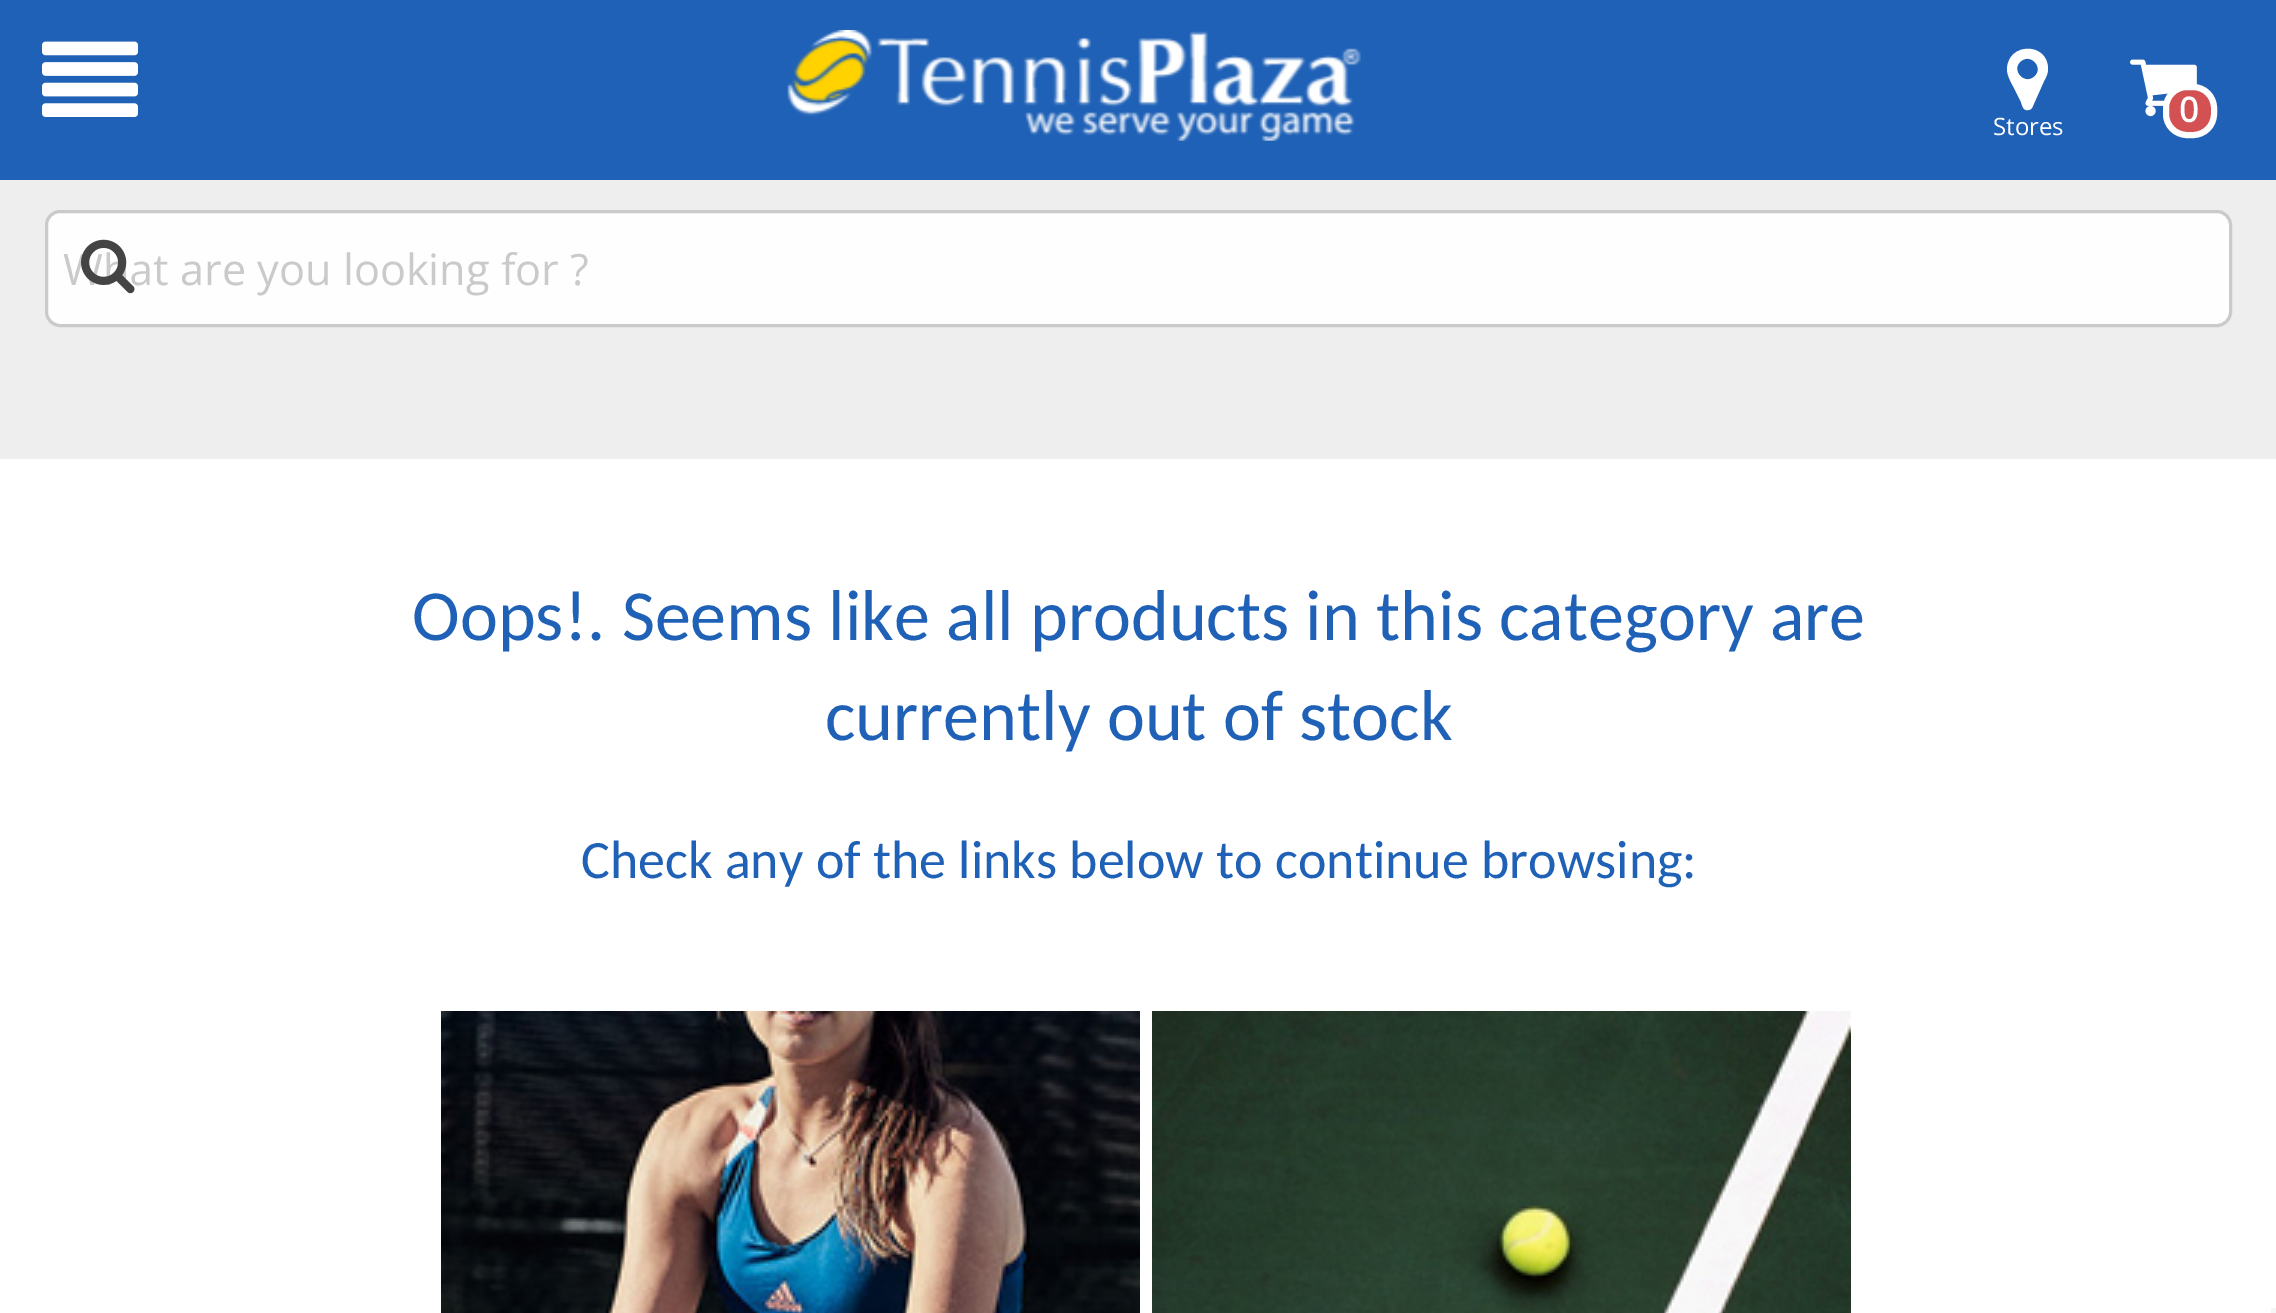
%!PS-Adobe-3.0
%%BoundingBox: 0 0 2276 1313
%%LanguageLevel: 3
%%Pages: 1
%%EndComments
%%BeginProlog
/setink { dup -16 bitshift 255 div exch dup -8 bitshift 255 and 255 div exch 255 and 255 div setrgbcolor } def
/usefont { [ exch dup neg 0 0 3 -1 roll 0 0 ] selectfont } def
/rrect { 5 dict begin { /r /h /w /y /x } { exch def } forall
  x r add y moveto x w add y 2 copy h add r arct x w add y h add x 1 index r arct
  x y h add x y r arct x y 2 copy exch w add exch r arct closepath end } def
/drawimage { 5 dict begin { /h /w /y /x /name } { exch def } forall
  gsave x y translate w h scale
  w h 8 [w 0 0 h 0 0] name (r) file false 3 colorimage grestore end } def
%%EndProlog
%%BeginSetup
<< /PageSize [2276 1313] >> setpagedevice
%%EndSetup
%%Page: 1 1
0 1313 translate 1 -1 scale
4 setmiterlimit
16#EEEEEE setink
0 0 2276 1313 rectfill
16#1F61B6 setink
0 0 2276 180 rectfill
(img1.raw) 42 41 96 76 drawimage
(img2.raw) 787 30 574 111 drawimage
(img3.raw) 2130 59 67 58 drawimage
16#D35053 setink
2166 87 48 48 21 rrect gsave fill grestore
16#FFFFFF setink
6 setlinewidth
stroke
/OpenSans-Bold 34 usefont
2179 122 moveto (0) show
2035 76 moveto 2044 67 2030 52 2020 62 curveto 2011 71 2025 86 2035 76 curveto closepath 2048 69 moveto 2048 74 2046 77 2044 81 curveto 2032 108 lineto 2031 109 2030 110 2028 110 curveto 2023 111 2022 105 2021 102 curveto 2016 92 lineto 2013 85 2007 77 2007 69 curveto 2008 42 2048 42 2048 69 curveto closepath fill
/OpenSans-Regular 24 usefont
1993 135 moveto (Stores) show
16#FEFEFE setink
46.5 211.5 2184 114 13.5 rrect gsave fill grestore
16#CACACA setink
3 setlinewidth
stroke
/OpenSans-Regular 43.25 usefont
63 285 moveto (What are you looking for ?) show
(img4.raw) 81 239 54 55 drawimage
16#FFFFFF setink
0 459 2276 854 rectfill
/Carlito-Regular 72 usefont
16#1F61B6 setink
412 640 moveto (Oops!. Seems like all products in this category are) show
825 740 moveto (currently out of stock) show
/Carlito-Regular 54 usefont
581 878 moveto (Check any of the links below to continue browsing:) show
(img5.raw) 441 1011 699 302 drawimage
(img6.raw) 1152 1011 699 302 drawimage
16#F5F5F5 setink
2271 1308 5 5 rectfill
showpage
%%EOF
